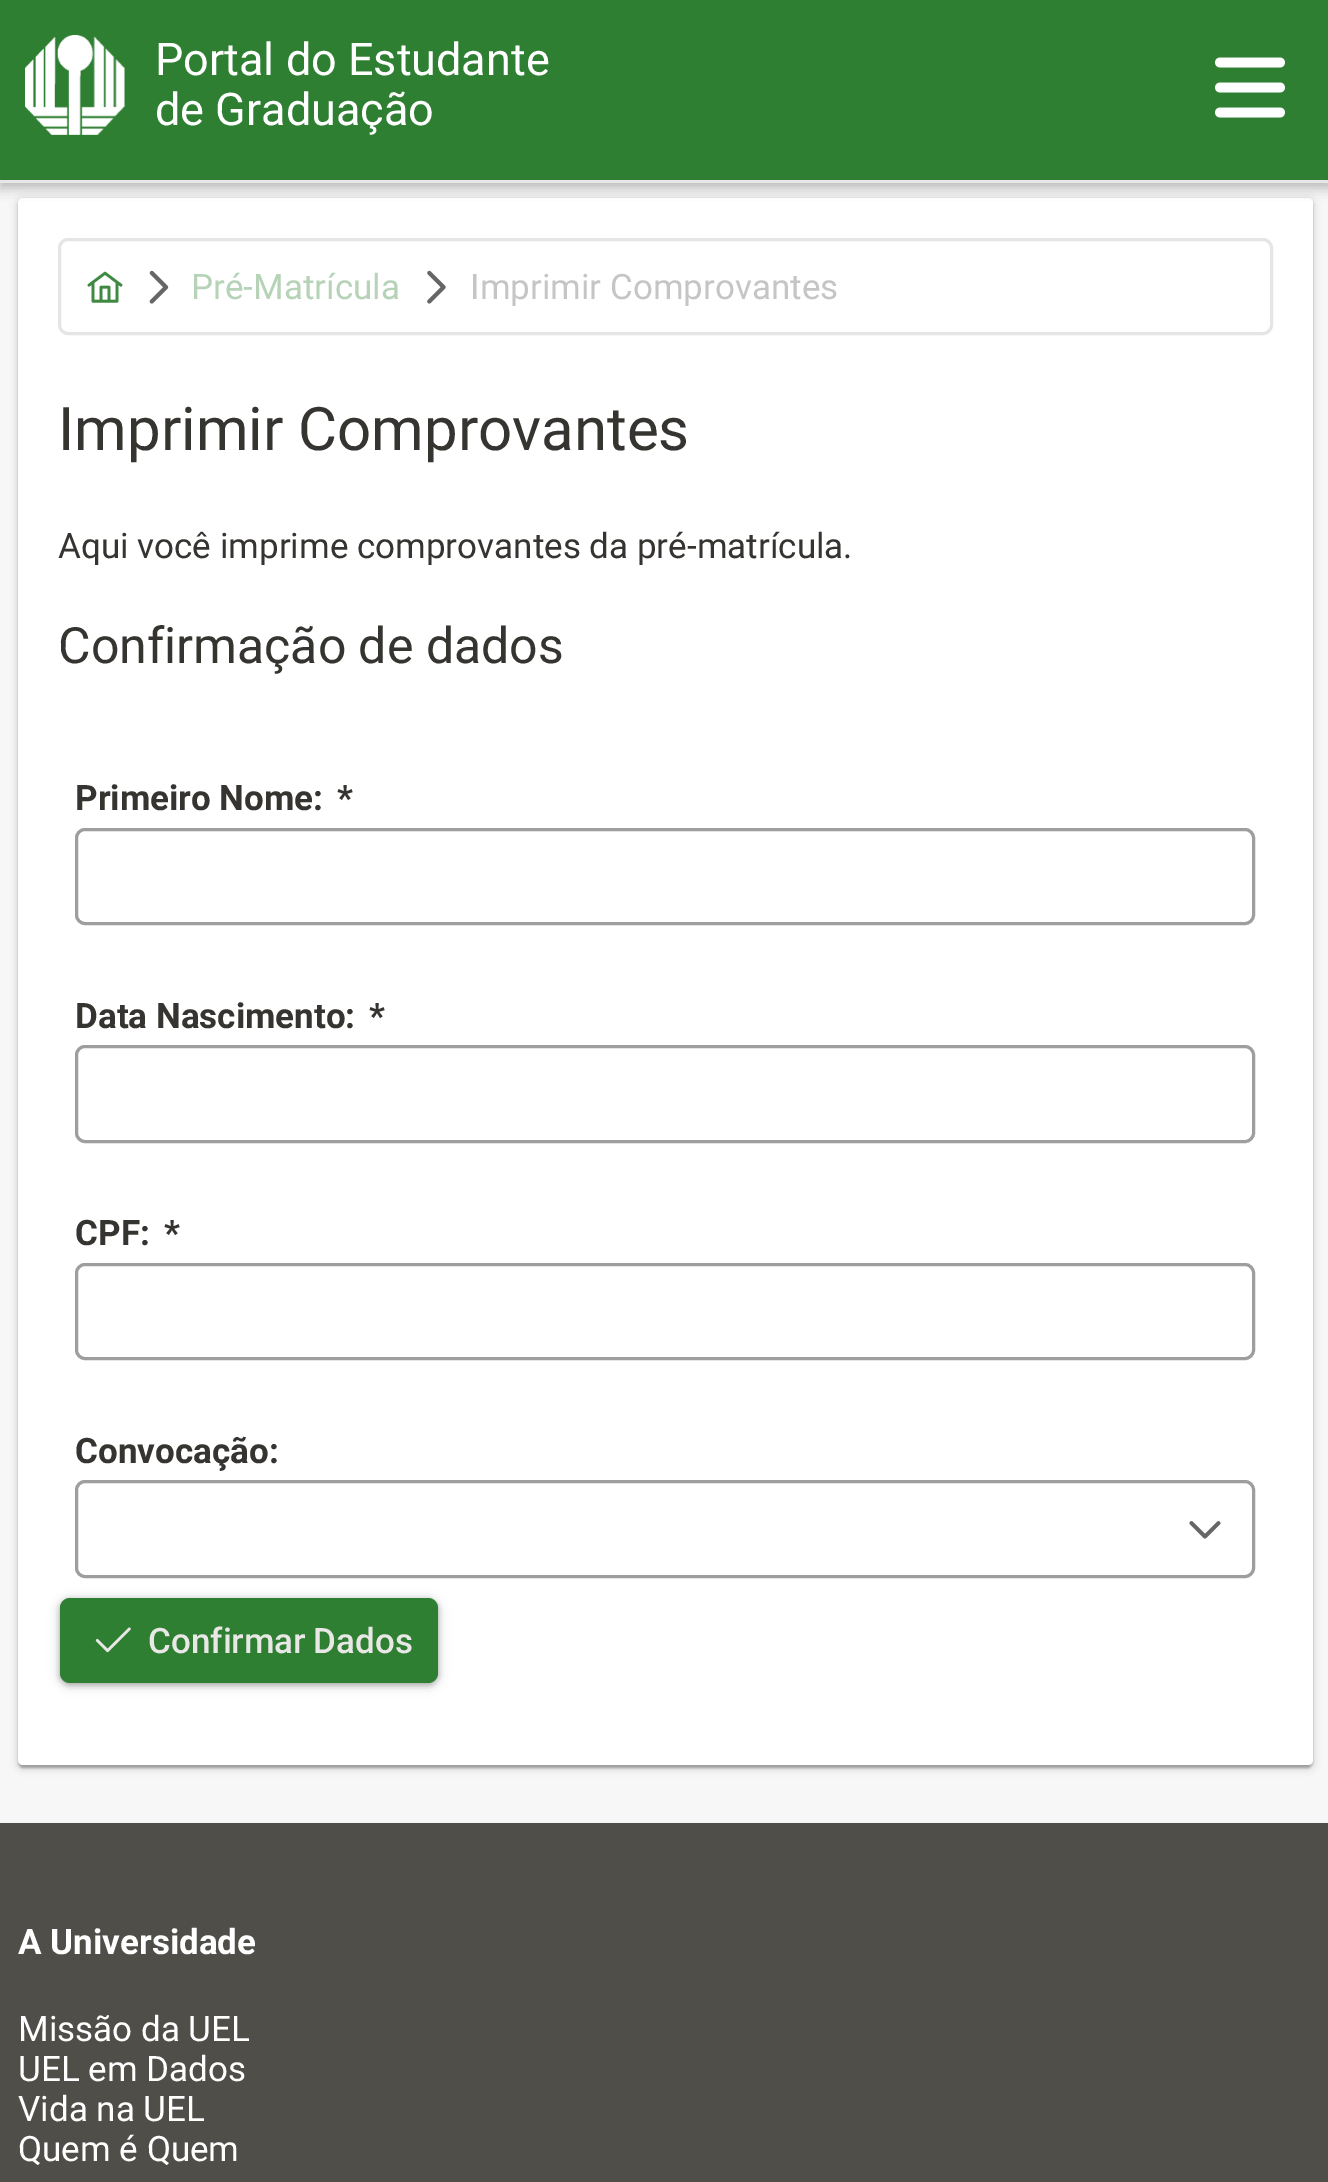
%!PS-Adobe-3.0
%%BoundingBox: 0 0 1328 2182
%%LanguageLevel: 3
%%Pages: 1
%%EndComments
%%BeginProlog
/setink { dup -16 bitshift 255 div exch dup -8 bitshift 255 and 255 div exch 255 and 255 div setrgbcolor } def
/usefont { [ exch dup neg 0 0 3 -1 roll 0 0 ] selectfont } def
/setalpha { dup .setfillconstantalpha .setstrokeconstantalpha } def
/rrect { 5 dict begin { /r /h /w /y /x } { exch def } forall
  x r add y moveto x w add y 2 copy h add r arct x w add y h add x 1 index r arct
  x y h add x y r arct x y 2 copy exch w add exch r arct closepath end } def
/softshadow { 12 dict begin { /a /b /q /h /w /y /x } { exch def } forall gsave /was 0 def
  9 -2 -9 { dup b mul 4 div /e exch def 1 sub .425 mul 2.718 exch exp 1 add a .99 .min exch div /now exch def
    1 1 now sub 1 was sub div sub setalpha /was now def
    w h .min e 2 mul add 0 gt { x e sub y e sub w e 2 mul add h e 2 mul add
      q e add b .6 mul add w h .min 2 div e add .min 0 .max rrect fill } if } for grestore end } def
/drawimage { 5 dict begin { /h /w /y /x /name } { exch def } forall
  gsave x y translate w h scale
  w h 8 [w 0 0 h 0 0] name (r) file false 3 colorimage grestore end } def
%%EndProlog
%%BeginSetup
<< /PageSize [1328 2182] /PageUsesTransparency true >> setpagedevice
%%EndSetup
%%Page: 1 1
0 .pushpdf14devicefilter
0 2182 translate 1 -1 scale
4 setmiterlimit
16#F7F7F7 setink
0 0 1328 2182 rectfill
16#000000 setink
20 205 1290 1563 2.5 1 0.12 softshadow
18 200 1295 1568 5 1 0.14 softshadow
18 200 1295 1568 5 4 0.2 softshadow
16#FFFFFF setink
18 198 1295 1567 5 rrect fill
16#000000 setink
0 5 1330 183 0 6 0.26 softshadow
16#2F7F33 setink
0 0 1328 180 rectfill
16#E7E7E7 setink
0 180 1328 3 rectfill
(img1.raw) 25 35 100 100 drawimage
/Roboto-Regular 45 usefont
16#FFFFFF setink
155 75 moveto (Portal do Estudante) show
155 125 moveto (de Graduação) show
(img2.raw) 1215 57 70 61 drawimage
16#E5E5E5 setink
3 setlinewidth
59.5 239.5 1212 94 8.5 rrect stroke
(img3.raw) 87 271 36 32 drawimage
(img4.raw) 149 270 20 34 drawimage
/Roboto-Regular 35 usefont
16#B6D2B7 setink
191 299 moveto (Pré-Matrícula) show
(img5.raw) 427 270 19 34 drawimage
16#C5C5C5 setink
470 299 moveto (Imprimir Comprovantes) show
/Roboto-Regular 60 usefont
16#363430 setink
58 450 moveto (Imprimir Comprovantes) show
/Roboto-Regular 35 usefont
58 558 moveto (Aqui você imprime comprovantes da pré-matrícula.) show
/Roboto-Regular 50 usefont
58 663 moveto (Confirmação de dados) show
/Roboto-Bold 35 usefont
75 810 moveto (Primeiro Nome:) show
337 810 moveto (*) show
16#9E9E9E setink
76.5 829.5 1177 94 8.5 rrect stroke
16#363430 setink
75 1028 moveto (Data Nascimento:) show
369 1028 moveto (*) show
16#9E9E9E setink
76.5 1046.5 1177 95 8.5 rrect stroke
16#363430 setink
75 1245 moveto (CPF:) show
164 1245 moveto (*) show
16#9E9E9E setink
76.5 1264.5 1177 94 8.5 rrect stroke
16#363430 setink
75 1463 moveto (Convocação:) show
16#9E9E9E setink
76.5 1481.5 1177 95 8.5 rrect stroke
(img6.raw) 1189 1521 32 18 drawimage
16#000000 setink
60 1600 378 85 10 6 0.16 softshadow
60 1600 378 85 10 3 0.26 softshadow
16#2F7F33 setink
60 1598 378 85 10 rrect fill
(img7.raw) 95 1627 36 26 drawimage
/Roboto-Medium 35 usefont
16#E9E8E7 setink
148 1653 moveto -1 0 32 (Confirmar Dados) widthshow
16#504E49 setink
0 1823 1328 359 rectfill
/Roboto-Bold 35 usefont
16#FFFFFF setink
18 1954 moveto (A Universidade) show
/Roboto-Regular 35 usefont
[
    [(Missão da UEL) 18 2041]
    [(UEL em Dados) 18 2081]
    [(Vida na UEL) 18 2121]
    [(Quem é Quem) 18 2161]
] { aload pop moveto show } forall
.poppdf14devicefilter showpage
%%EOF
